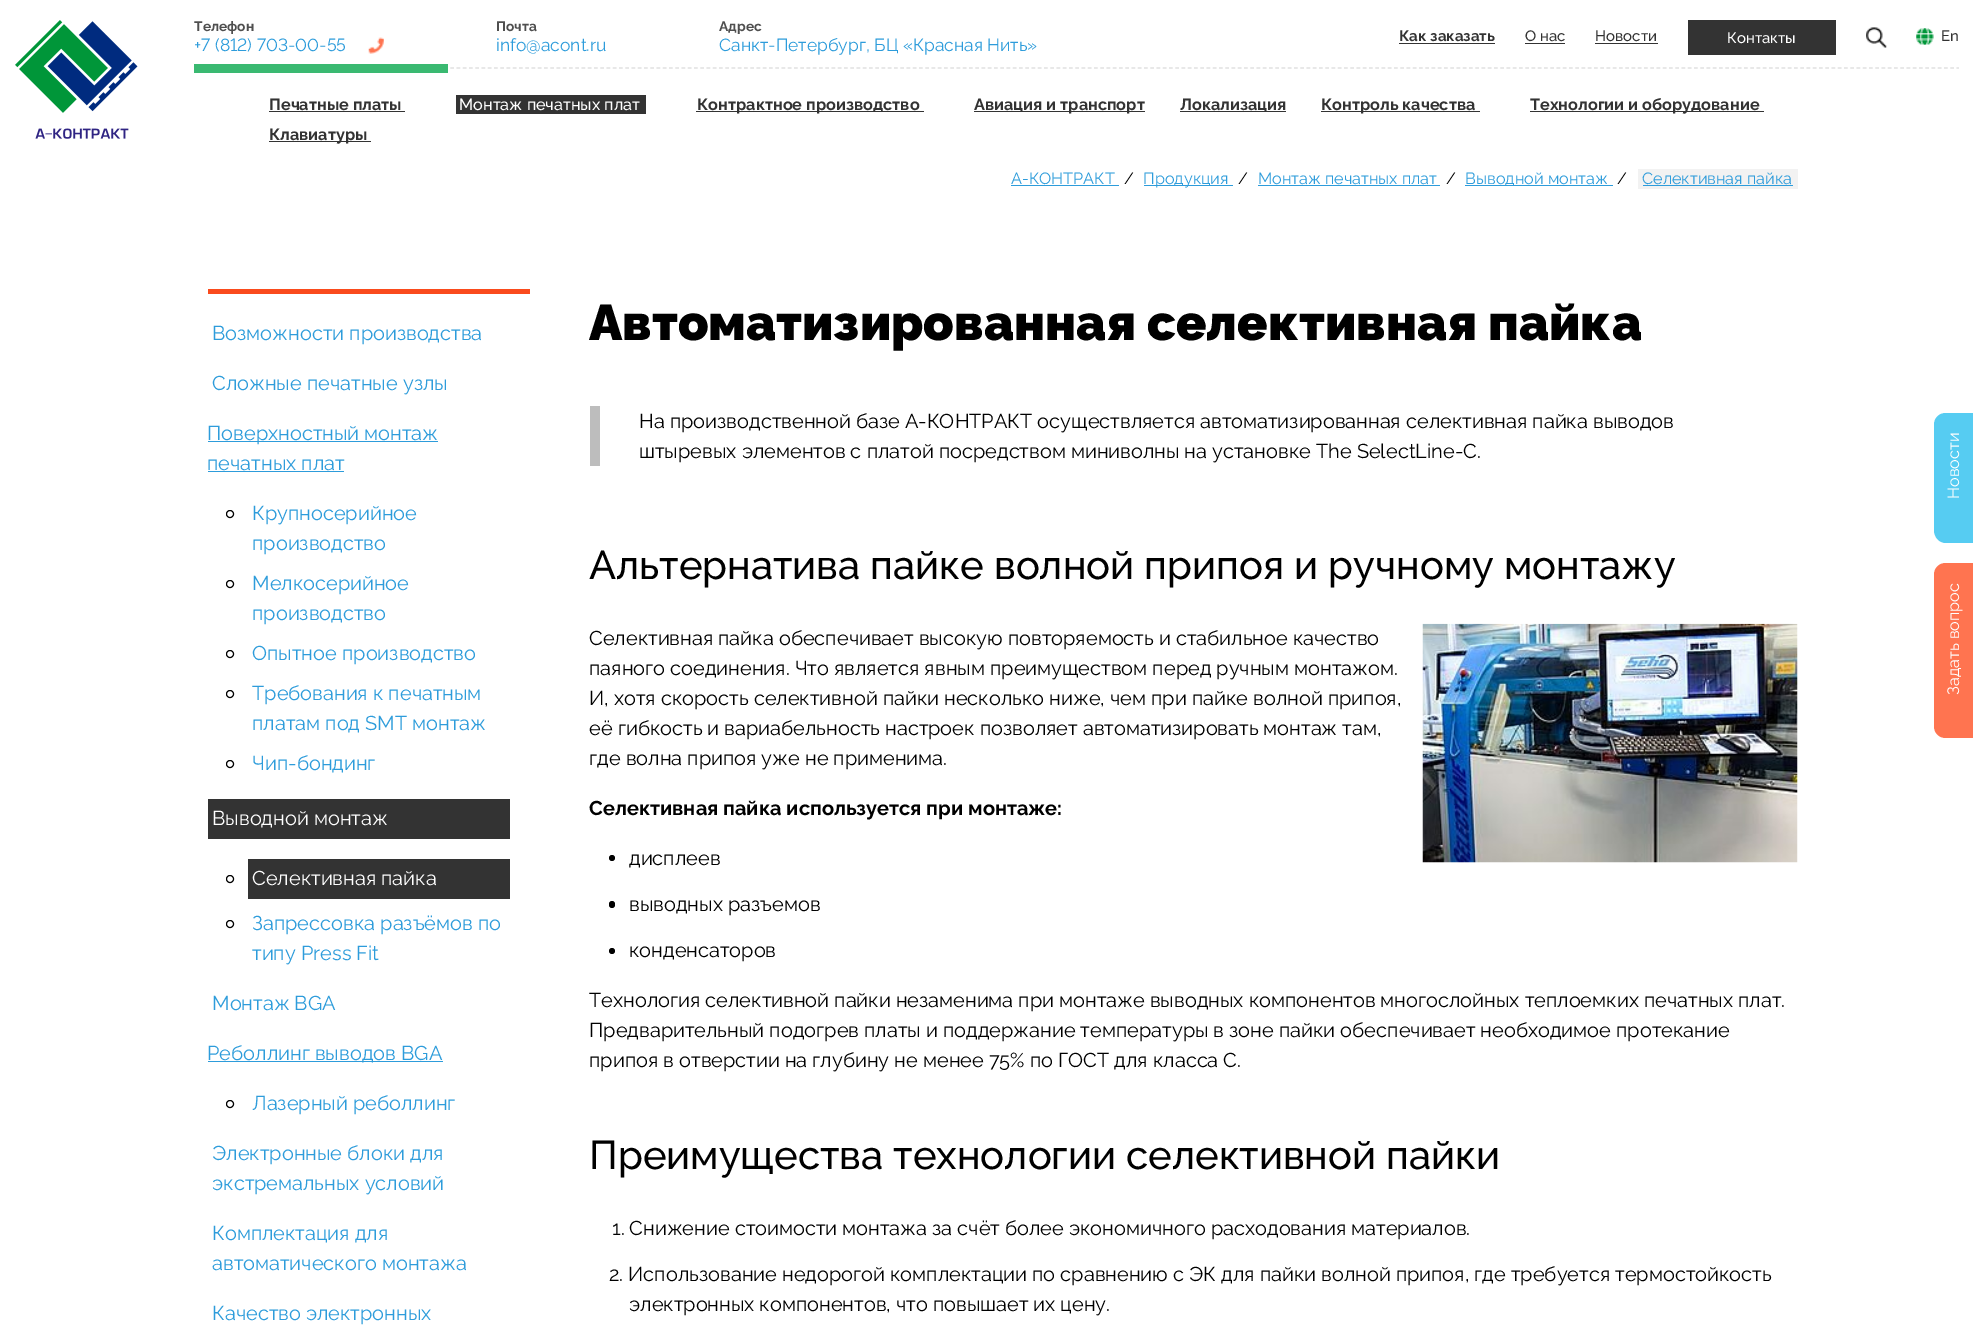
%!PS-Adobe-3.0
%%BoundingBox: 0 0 1973 1327
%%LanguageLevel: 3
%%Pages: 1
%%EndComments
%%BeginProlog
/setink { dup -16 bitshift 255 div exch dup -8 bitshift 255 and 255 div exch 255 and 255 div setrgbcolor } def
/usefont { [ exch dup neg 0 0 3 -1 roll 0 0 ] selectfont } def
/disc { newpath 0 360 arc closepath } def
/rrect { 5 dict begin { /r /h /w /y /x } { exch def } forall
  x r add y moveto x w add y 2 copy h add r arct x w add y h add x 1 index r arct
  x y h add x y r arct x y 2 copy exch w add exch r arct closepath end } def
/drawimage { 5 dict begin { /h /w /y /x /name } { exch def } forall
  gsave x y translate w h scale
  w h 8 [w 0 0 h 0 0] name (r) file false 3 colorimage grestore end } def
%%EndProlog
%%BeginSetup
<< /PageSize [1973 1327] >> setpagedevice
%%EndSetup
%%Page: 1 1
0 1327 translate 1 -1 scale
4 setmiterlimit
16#FFFFFF setink
0 0 1973 1327 rectfill
(img1.raw) 15 20 123 119 drawimage
16#E0E0E0 setink
1.2 setlinewidth
[3.75 2.5] 0 setdash
194 68 moveto 1959 68 lineto stroke
/Raleway-Bold 13.75 usefont
16#4F4F4F setink
194 31 moveto (Телефон) show
(img2.raw) 368 37 16 17 drawimage
/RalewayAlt-Regular 17.5 usefont
16#2D9CDB setink
194 51 moveto (+7 \(812\) 703-00-55) show
/Raleway-Bold 13.75 usefont
16#4F4F4F setink
496 31 moveto (Почта) show
/Raleway-Regular 17.5 usefont
16#2D9CDB setink
496 51 moveto (info@acont.ru) show
/Raleway-Bold 13.75 usefont
16#4F4F4F setink
719 31 moveto (Адрес) show
/Raleway-Regular 17.5 usefont
16#2D9CDB setink
719 51 moveto (Санкт-Петербург, БЦ «Красная Нить») show
/Raleway-Bold 15 usefont
16#333333 setink
1399 41 moveto (Как заказать) show
1399 43 96 1 rectfill
/Raleway-Medium 15 usefont
1525 41 moveto (О нас) show
1525 43 40 1 rectfill
1595 41 moveto (Новости) show
1595 43 63 1 rectfill
1688 20 148 35 rectfill
16#FFFFFF setink
1727 43 moveto (Контакты) show
(img3.raw) 1866 27 21 21 drawimage
(img4.raw) 1916 28 18 17 drawimage
16#333333 setink
1941 41 moveto (En) show
16#3AB971 setink
194 64 254 9 rectfill
/Raleway-Bold 16.25 usefont
16#333333 setink
269 110 moveto (Печатные платы) show
269 111 136 1 rectfill
456 95 190 19 rectfill
/Raleway-Medium 16.25 usefont
16#FFFFFF setink
459 110 moveto (Монтаж печатных плат) show
16#333333 setink
696 111 228 1 rectfill
/Raleway-Bold 16.25 usefont
697 110 moveto (Контрактное производство) show
974 111 171 1 rectfill
974 110 moveto (Авиация и транспорт) show
1180 111 106 1 rectfill
1180 110 moveto (Локализация) show
1321 111 159 1 rectfill
1321 110 moveto (Контроль качества) show
1530 111 234 1 rectfill
1530 110 moveto (Технологии и оборудование) show
269 141 102 1 rectfill
269 140 moveto (Клавиатуры) show
/Raleway-Regular 16.25 usefont
16#2D9CDB setink
1011 184 moveto (А-КОНТРАКТ) show
1011 185 108 1 rectfill
16#000000 setink
1124 184 moveto (/) show
16#2D9CDB setink
1144 185 89 1 rectfill
1143 184 moveto (Продукция) show
16#000000 setink
1238 184 moveto (/) show
16#2D9CDB setink
1258 184 moveto (Монтаж печатных плат) show
1258 185 182 1 rectfill
16#000000 setink
1446 184 moveto (/) show
16#2D9CDB setink
1465 185 148 1 rectfill
1465 184 moveto (Выводной монтаж) show
16#000000 setink
1617 184 moveto (/) show
16#F2F2F2 setink
1638 169 160 20 rectfill
16#2D9CDB setink
1642 184 moveto (Селективная пайка) show
1643 185 150 1 rectfill
16#FA4B1D setink
208 289 322 5 rectfill
/Raleway-Regular 20 usefont
16#2D9CDB setink
212 340 moveto (Возможности производства) show
212 390 moveto (Сложные печатные узлы) show
208 441 230 1 rectfill
207 440 moveto (Поверхностный монтаж) show
207 470 moveto (печатных плат) show
208 471 136 1 rectfill
16#000000 setink
1 setlinewidth
[] 0 setdash
230 514 3.5 disc stroke
16#2D9CDB setink
252 520 moveto (Крупносерийное) show
252 550 moveto (производство) show
16#000000 setink
230 584 3.5 disc stroke
16#2D9CDB setink
252 590 moveto (Мелкосерийное) show
252 620 moveto (производство) show
16#000000 setink
230 654 3.5 disc stroke
16#2D9CDB setink
252 660 moveto (Опытное производство) show
16#000000 setink
230 694 3.5 disc stroke
16#2D9CDB setink
252 700 moveto (Требования к печатным) show
252 730 moveto (платам под SMT монтаж) show
16#000000 setink
230 764 3.5 disc stroke
16#2D9CDB setink
252 770 moveto (Чип-бондинг) show
16#333333 setink
208 799 302 40 rectfill
16#FFFFFF setink
212 825 moveto (Выводной монтаж) show
16#000000 setink
230 879 3.5 disc stroke
16#333333 setink
248 859 262 40 rectfill
16#FFFFFF setink
252 885 moveto (Селективная пайка) show
16#000000 setink
230 924 3.5 disc stroke
16#2D9CDB setink
[
    [(Запрессовка разъёмов по) 252 930]
    [(типу Press Fit) 252 960]
    [(Монтаж BGA) 212 1010]
] { aload pop moveto show } forall
208 1061 235 1 rectfill
207 1060 moveto (Реболлинг выводов BGA) show
16#000000 setink
230 1104 3.5 disc stroke
16#2D9CDB setink
[
    [(Лазерный реболлинг) 252 1110]
    [(Электронные блоки для) 212 1160]
    [(экстремальных условий) 212 1190]
    [(Комплектация для) 212 1240]
    [(автоматического монтажа) 212 1270]
    [(Качество электронных) 212 1320]
] { aload pop moveto show } forall
/Raleway-Black 50 usefont
16#000000 setink
589 340 moveto (Автоматизированная селективная пайка) show
16#BDBDBD setink
590 406 10 60 rectfill
/Raleway-Regular 20 usefont
16#000000 setink
639 428 moveto (На производственной базе А-КОНТРАКТ осуществляется автоматизированная селективная пайка выводов) show
639 458 moveto (штыревых элементов с платой посредством миниволны на установке The SelectLine-C.) show
/Raleway-Medium 40 usefont
589 579 moveto (Альтернатива пайке волной припоя и ручному монтажу) show
(img5.raw) 1422 623 376 240 drawimage
/Raleway-Regular 20 usefont
[
    [(Селективная пайка обеспечивает высокую повторяемость и стабильное качество) 589 645]
    [(паяного соединения. Что является явным преимуществом перед ручным монтажом.) 589 675]
    [(И, хотя скорость селективной пайки несколько ниже, чем при пайке волной припоя,) 589 705]
    [(её гибкость и вариабельность настроек позволяет автоматизировать монтаж там,) 589 735]
    [(где волна припоя уже не применима.) 589 765]
] { aload pop moveto show } forall
/Raleway-Bold 20 usefont
589 815 moveto (Селективная пайка используется при монтаже:) show
612 858 3 disc fill
/Raleway-Regular 20 usefont
629 865 moveto (дисплеев) show
609 901 6 7 3 rrect fill
629 911 moveto (выводных разъемов) show
612 951 3 disc fill
[
    [(конденсаторов) 629 957]
    [(Технология селективной пайки незаменима при монтаже выводных компонентов многослойных теплоемких печатных плат.) 589 1007]
    [(Предварительный подогрев платы и поддержание температуры в зоне пайки обеспечивает необходимое протекание) 589 1037]
    [(припоя в отверстии на глубину не менее 75% по ГОСТ для класса С.) 589 1067]
] { aload pop moveto show } forall
/Raleway-Medium 40 usefont
589 1169 moveto (Преимущества технологии селективной пайки) show
/Raleway-Regular 20 usefont
[
    [(1. Снижение стоимости монтажа за счёт более экономичного расходования материалов.) 612 1235]
    [(2. Использование недорогой комплектации по сравнению с ЭК для пайки волной припоя, где требуется термостойкость) 609 1281]
    [(электронных компонентов, что повышает их цену.) 629 1311]
] { aload pop moveto show } forall
16#56CCF2 setink
1934 530 moveto 1934 425 lineto 1934 418 1939 413 1946 413 curveto 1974 413 lineto 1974 543 lineto 1946 543 lineto 1939 543 1934 537 1934 530 curveto closepath fill
/Raleway-Regular 16.25 usefont
16#FFFFFF setink
gsave 1959 499 translate -90 rotate 0 0 moveto (Новости) show grestore
16#FF7450 setink
1934 726 moveto 1934 575 lineto 1934 568 1939 563 1946 563 curveto 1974 563 lineto 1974 738 lineto 1946 738 lineto 1939 738 1934 733 1934 726 curveto closepath fill
16#FFFFFF setink
gsave 1959 695 translate -90 rotate 0 0 moveto (Задать вопрос) show grestore
showpage
%%EOF
